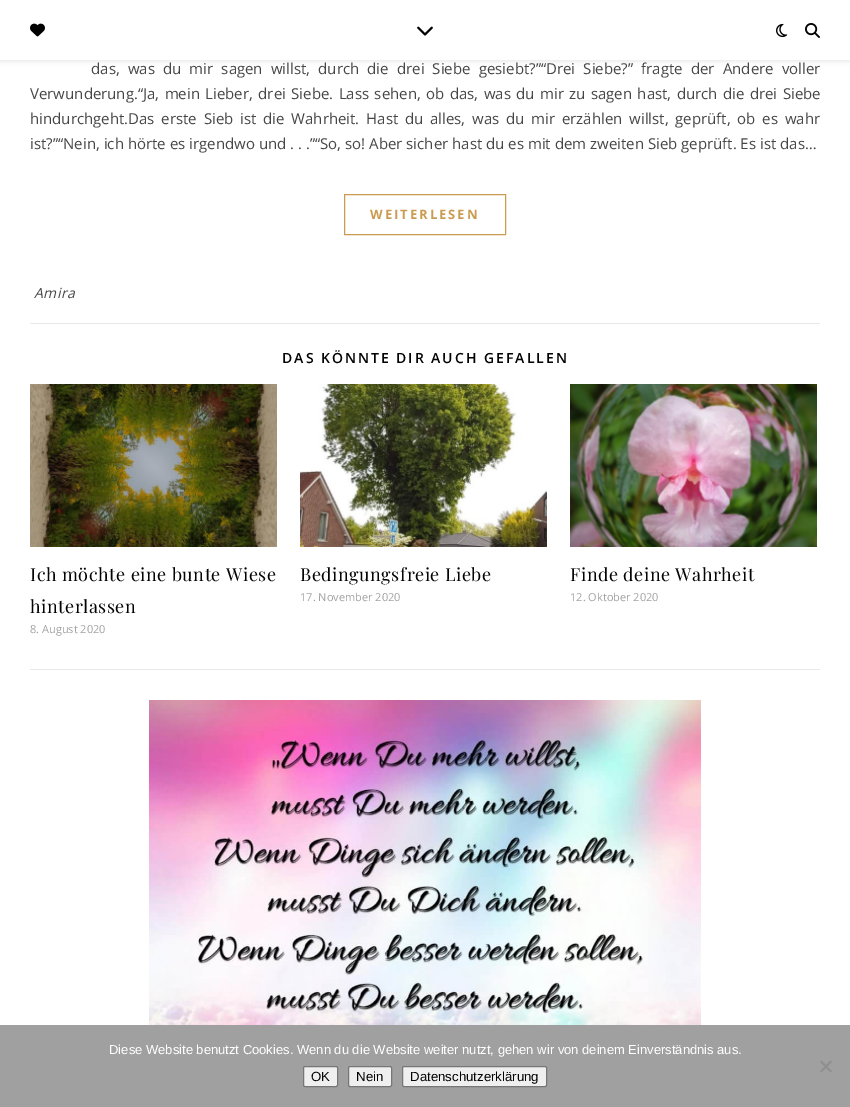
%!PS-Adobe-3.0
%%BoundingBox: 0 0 850 1107
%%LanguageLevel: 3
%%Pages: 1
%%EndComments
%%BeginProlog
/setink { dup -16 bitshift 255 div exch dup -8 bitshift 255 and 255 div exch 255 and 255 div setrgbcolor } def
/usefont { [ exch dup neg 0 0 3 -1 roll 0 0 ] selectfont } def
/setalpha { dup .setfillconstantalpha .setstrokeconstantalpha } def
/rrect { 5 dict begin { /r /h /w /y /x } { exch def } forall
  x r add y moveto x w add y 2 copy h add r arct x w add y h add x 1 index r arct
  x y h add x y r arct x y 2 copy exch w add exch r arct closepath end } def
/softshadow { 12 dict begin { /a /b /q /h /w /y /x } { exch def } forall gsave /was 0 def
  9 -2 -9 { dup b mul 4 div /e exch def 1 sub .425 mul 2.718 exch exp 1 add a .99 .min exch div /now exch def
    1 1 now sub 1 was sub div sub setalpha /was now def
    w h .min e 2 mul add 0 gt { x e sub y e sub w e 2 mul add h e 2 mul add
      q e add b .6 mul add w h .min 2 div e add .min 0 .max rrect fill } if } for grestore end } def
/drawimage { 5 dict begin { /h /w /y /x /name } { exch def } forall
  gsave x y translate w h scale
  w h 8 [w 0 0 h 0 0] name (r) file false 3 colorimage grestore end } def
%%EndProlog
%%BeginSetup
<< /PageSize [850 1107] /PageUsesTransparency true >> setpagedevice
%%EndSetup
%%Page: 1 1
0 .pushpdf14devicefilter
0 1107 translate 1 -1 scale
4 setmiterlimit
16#FFFFFF setink
0 0 850 1107 rectfill
16#000000 setink
0 1 850 60 0 2.5 0.1 softshadow
16#FFFFFF setink
0 0 850 60 rectfill
(img1.raw) 30 23 15 14 drawimage
(img2.raw) 417 26 16 10 drawimage
(img3.raw) 776 23 12 15 drawimage
(img4.raw) 805 23 15 15 drawimage
/OpenSans-Regular 15 usefont
16#464646 setink
91 74 moveto 4.25 0 32 (das, was du mir sagen willst, durch die drei Siebe gesiebt?”“Drei Siebe?” fragte der Andere voller) widthshow
30 99 moveto 1.5 0 32 (Verwunderung.“Ja, mein Lieber, drei Siebe. Lass sehen, ob das, was du mir zu sagen hast, durch die drei Siebe) widthshow
30 124 moveto 2.9 0 32 (hindurchgeht.Das erste Sieb ist die Wahrheit. Hast du alles, was du mir erzählen willst, geprüft, ob es wahr) widthshow
30 149 moveto (ist?”“Nein, ich hörte es irgendwo und . . .”“So, so! Aber sicher hast du es mit dem zweiten Sieb geprüft. Es ist das…) show
16#CA9B52 setink
344.5 194.5 161 40 rectstroke
/OpenSans-Bold 13 usefont
370 219 moveto 2 0 (WEITERLESEN) ashow
16#E8E8E8 setink
30 323 790 1 rectfill
/OpenSans-Italic 14 usefont
16#464646 setink
34 298 moveto 0.5 0 (Amira) ashow
16#E8E8E8 setink
30 669 790 1 rectfill
/OpenSans-SemiBold 14 usefont
16#030303 setink
282 363 moveto 2 0 (DAS KÖNNTE DIR AUCH GEFALLEN) ashow
(img5.raw) 30 384 247 163 drawimage
/PlayfairDisplay-Regular 18 usefont
30 581 moveto 0.5 0 (Ich möchte eine bunte Wiese) ashow
30 613 moveto 0.5 0 (hinterlassen) ashow
/OpenSans-Regular 11 usefont
16#A1A1A1 setink
30 633 moveto (8. August 2020) show
(img6.raw) 300 384 247 163 drawimage
/PlayfairDisplay-Regular 18 usefont
16#030303 setink
300 581 moveto 0.5 0 (Bedingungsfreie Liebe) ashow
/OpenSans-Regular 11 usefont
16#A1A1A1 setink
300 601 moveto (17. November 2020) show
(img7.raw) 570 384 247 163 drawimage
/PlayfairDisplay-Regular 18 usefont
16#030303 setink
570 581 moveto 0.5 0 (Finde deine Wahrheit) ashow
/OpenSans-Regular 11 usefont
16#A1A1A1 setink
570 601 moveto (12. Oktober 2020) show
(img8.raw) 149 700 552 325 drawimage
16#A0A0A0 setink
0 1025 850 82 rectfill
/LiberationSans-Regular 13 usefont
16#FFFFFF setink
109 1054 moveto (Diese Website benutzt Cookies. Wenn du die Website weiter nutzt, gehen wir von deinem Einverständnis aus.) show
16#909090 setink
830.5 1060.5 moveto 832 1062 lineto 821.5 1072.5 lineto 820 1071 lineto closepath fill
820 1062 moveto 821.5 1060.5 lineto 832 1071 lineto 830.5 1072.5 lineto closepath fill
16#EFEFEF setink
303.5 1066.5 34 20 1.5 rrect gsave fill grestore
16#767676 setink
stroke
/LiberationSans-Regular 13.25 usefont
16#030303 setink
311 1081 moveto (OK) show
16#EFEFEF setink
348.5 1066.5 43 20 1.5 rrect gsave fill grestore
16#767676 setink
stroke
16#030303 setink
356 1081 moveto (Nein) show
16#EFEFEF setink
402.5 1066.5 144 20 1.5 rrect gsave fill grestore
16#767676 setink
stroke
16#030303 setink
410 1081 moveto (Datenschutzerklärung) show
.poppdf14devicefilter showpage
%%EOF
